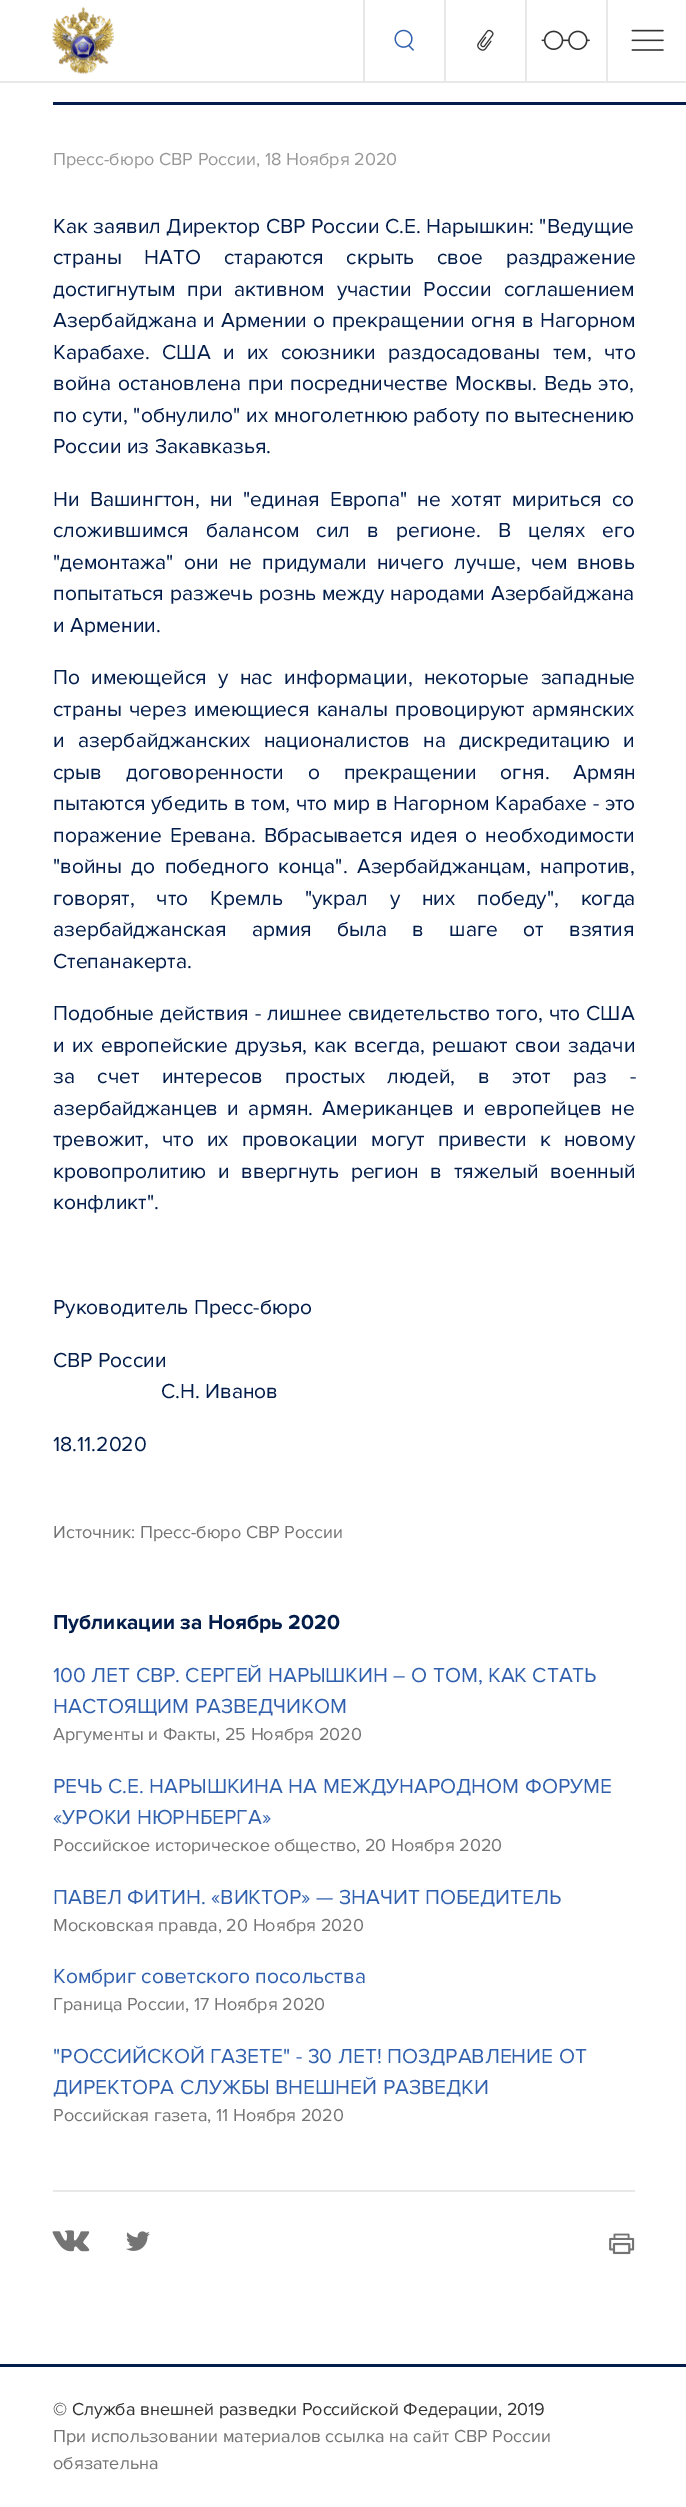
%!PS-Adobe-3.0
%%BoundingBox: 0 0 686 2507
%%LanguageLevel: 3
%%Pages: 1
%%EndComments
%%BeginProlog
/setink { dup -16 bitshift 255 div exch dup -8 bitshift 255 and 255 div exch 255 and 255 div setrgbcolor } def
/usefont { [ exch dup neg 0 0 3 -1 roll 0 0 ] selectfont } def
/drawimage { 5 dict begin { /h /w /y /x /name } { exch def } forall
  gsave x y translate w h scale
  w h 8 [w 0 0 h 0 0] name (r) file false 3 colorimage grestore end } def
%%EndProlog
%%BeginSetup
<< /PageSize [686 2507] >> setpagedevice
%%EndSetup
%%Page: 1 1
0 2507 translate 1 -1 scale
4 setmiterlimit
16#FFFFFF setink
0 0 686 2507 rectfill
16#E8E8E8 setink
0 81 686 2 rectfill
(img1.raw) 52 7 62 67 drawimage
363 0 2 81 rectfill
(img2.raw) 394 29 20 22 drawimage
444 0 2 81 rectfill
(img3.raw) 477 29 17 22 drawimage
525 0 2 81 rectfill
(img4.raw) 541 30 49 20 drawimage
606 0 2 81 rectfill
(img5.raw) 631 29 33 22 drawimage
16#031D4B setink
53 102 633 3 rectfill
/ProximaNova-Regular 18 usefont
16#989898 setink
53 165 moveto (Пресс-бюро СВР России, 18 Ноября 2020) show
/ProximaNova-Regular 21 usefont
16#031D4B setink
53 233 moveto (Как заявил Директор СВР России С.Е. Нарышкин: "Ведущие) show
53 264 moveto 17.5 0 32 (страны НАТО стараются скрыть свое раздражение) widthshow
53 296 moveto 6.5 0 32 (достигнутым при активном участии России соглашением) widthshow
53 327 moveto 1 0 32 (Азербайджана и Армении о прекращении огня в Нагорном) widthshow
53 359 moveto 7 0 32 (Карабахе. США и их союзники раздосадованы тем, что) widthshow
53 390 moveto 1.5 0 32 (война остановлена при посредничестве Москвы. Ведь это,) widthshow
53 422 moveto 0.25 0 32 (по сути, "обнулило" их многолетнюю работу по вытеснению) widthshow
53 453 moveto (России из Закавказья.) show
53 506 moveto 4.75 0 32 (Ни Вашингтон, ни "единая Европа" не хотят мириться со) widthshow
53 537 moveto 11.75 0 32 (сложившимся балансом сил в регионе. В целях его) widthshow
53 569 moveto 4.5 0 32 ("демонтажа" они не придумали ничего лучше, чем вновь) widthshow
53 600 moveto 0.5 0 32 (попытаться разжечь рознь между народами Азербайджана) widthshow
53 632 moveto (и Армении.) show
53 684 moveto 6 0 32 (По имеющейся у нас информации, некоторые западные) widthshow
53 716 moveto 2 0 32 (страны через имеющиеся каналы провоцируют армянских) widthshow
53 747 moveto 7.75 0 32 (и азербайджанских националистов на дискредитацию и) widthshow
53 779 moveto 18.5 0 32 (срыв договоренности о прекращении огня. Армян) widthshow
53 810 moveto 0.25 0 32 (пытаются убедить в том, что мир в Нагорном Карабахе - это) widthshow
53 842 moveto 2.75 0 32 (поражение Еревана. Вбрасывается идея о необходимости) widthshow
53 873 moveto 4 0 32 ("войны до победного конца". Азербайджанцам, напротив,) widthshow
53 905 moveto 16.5 0 32 (говорят, что Кремль "украл у них победу", когда) widthshow
53 936 moveto 20 0 32 (азербайджанская армия была в шаге от взятия) widthshow
53 968 moveto (Степанакерта.) show
53 1020 moveto 0.5 0 32 (Подобные действия - лишнее свидетельство того, что США) widthshow
53 1052 moveto 1.75 0 32 (и их европейские друзья, как всегда, решают свои задачи) widthshow
53 1083 moveto 17 0 32 (за счет интересов простых людей, в этот раз -) widthshow
53 1115 moveto 4 0 32 (азербайджанцев и армян. Американцев и европейцев не) widthshow
53 1146 moveto 7.75 0 32 (тревожит, что их провокации могут привести к новому) widthshow
53 1178 moveto 6.25 0 32 (кровопролитию и ввергнуть регион в тяжелый военный) widthshow
[
    [(конфликт".) 53 1209]
    [(Руководитель Пресс-бюро) 53 1314]
    [(СВР России) 53 1367]
    [(С.Н. Иванов) 161 1398]
    [(18.11.2020) 53 1451]
] { aload pop moveto show } forall
/ProximaNova-Regular 18 usefont
16#747474 setink
53 1538 moveto (Источник: Пресс-бюро СВР России) show
/ProximaNova-Bold 21 usefont
16#031D4B setink
53 1629 moveto (Публикации за Ноябрь 2020) show
/ProximaNova-Regular 21 usefont
16#3060AD setink
53 1682 moveto (100 ЛЕТ СВР. СЕРГЕЙ НАРЫШКИН – О ТОМ, КАК СТАТЬ) show
53 1713 moveto (НАСТОЯЩИМ РАЗВЕДЧИКОМ) show
/ProximaNova-Regular 18 usefont
16#747474 setink
53 1740 moveto (Аргументы и Факты, 25 Ноября 2020) show
/ProximaNova-Regular 21 usefont
16#3060AD setink
53 1793 moveto (РЕЧЬ С.Е. НАРЫШКИНА НА МЕЖДУНАРОДНОМ ФОРУМЕ) show
53 1824 moveto («УРОКИ НЮРНБЕРГА») show
/ProximaNova-Regular 18 usefont
16#747474 setink
53 1851 moveto (Российское историческое общество, 20 Ноября 2020) show
/ProximaNova-Regular 21 usefont
16#3060AD setink
53 1904 moveto (ПАВЕЛ ФИТИН. «ВИКТОР» — ЗНАЧИТ ПОБЕДИТЕЛЬ) show
/ProximaNova-Regular 18 usefont
16#747474 setink
53 1931 moveto (Московская правда, 20 Ноября 2020) show
/ProximaNova-Regular 21 usefont
16#3060AD setink
53 1983 moveto (Комбриг советского посольства) show
/ProximaNova-Regular 18 usefont
16#747474 setink
53 2010 moveto (Граница России, 17 Ноября 2020) show
/ProximaNova-Regular 21 usefont
16#3060AD setink
53 2063 moveto ("РОССИЙСКОЙ ГАЗЕТЕ" - 30 ЛЕТ! ПОЗДРАВЛЕНИЕ ОТ) show
53 2094 moveto (ДИРЕКТОРА СЛУЖБЫ ВНЕШНЕЙ РАЗВЕДКИ) show
/ProximaNova-Regular 18 usefont
16#747474 setink
53 2121 moveto (Российская газета, 11 Ноября 2020) show
16#E8E8E8 setink
53 2190 582 2 rectfill
(img6.raw) 52 2230 38 22 drawimage
(img7.raw) 126 2231 24 20 drawimage
(img8.raw) 609 2233 26 22 drawimage
16#031D4B setink
0 2364 686 3 rectfill
16#333333 setink
53 2415 moveto (© Служба внешней разведки Российской Федерации, 2019) show
16#747474 setink
53 2442 moveto (При использовании материалов ссылка на сайт СВР России) show
53 2469 moveto (обязательна) show
showpage
%%EOF
